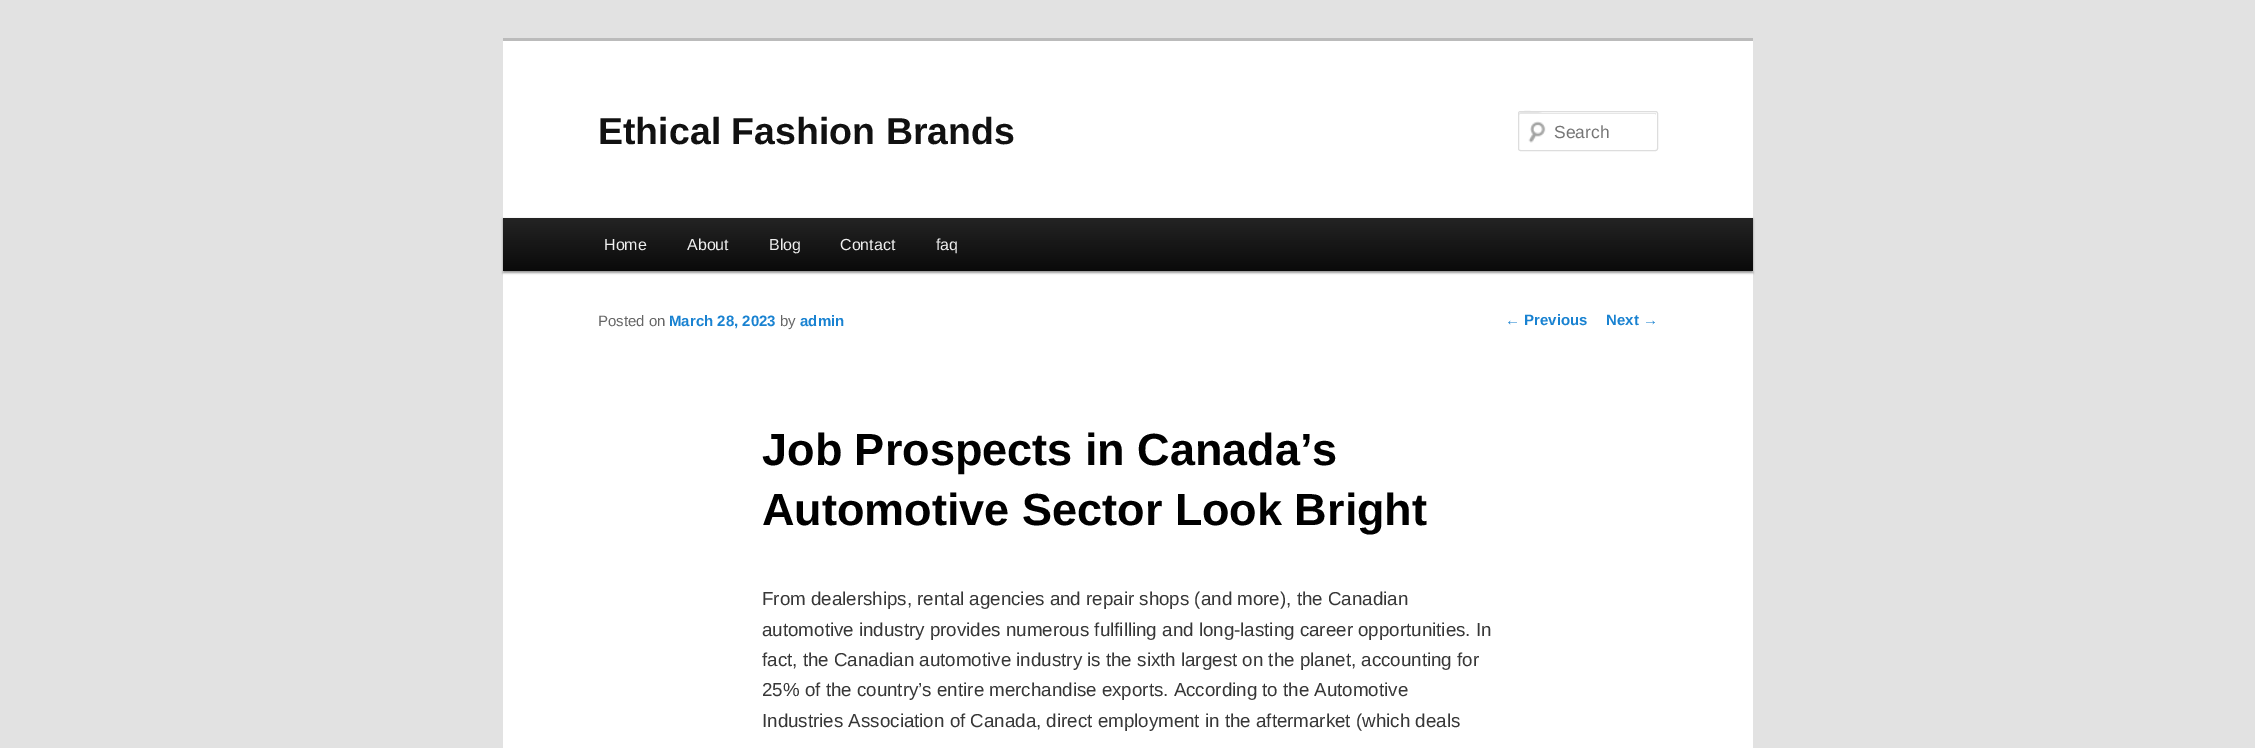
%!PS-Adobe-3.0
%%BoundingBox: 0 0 2255 748
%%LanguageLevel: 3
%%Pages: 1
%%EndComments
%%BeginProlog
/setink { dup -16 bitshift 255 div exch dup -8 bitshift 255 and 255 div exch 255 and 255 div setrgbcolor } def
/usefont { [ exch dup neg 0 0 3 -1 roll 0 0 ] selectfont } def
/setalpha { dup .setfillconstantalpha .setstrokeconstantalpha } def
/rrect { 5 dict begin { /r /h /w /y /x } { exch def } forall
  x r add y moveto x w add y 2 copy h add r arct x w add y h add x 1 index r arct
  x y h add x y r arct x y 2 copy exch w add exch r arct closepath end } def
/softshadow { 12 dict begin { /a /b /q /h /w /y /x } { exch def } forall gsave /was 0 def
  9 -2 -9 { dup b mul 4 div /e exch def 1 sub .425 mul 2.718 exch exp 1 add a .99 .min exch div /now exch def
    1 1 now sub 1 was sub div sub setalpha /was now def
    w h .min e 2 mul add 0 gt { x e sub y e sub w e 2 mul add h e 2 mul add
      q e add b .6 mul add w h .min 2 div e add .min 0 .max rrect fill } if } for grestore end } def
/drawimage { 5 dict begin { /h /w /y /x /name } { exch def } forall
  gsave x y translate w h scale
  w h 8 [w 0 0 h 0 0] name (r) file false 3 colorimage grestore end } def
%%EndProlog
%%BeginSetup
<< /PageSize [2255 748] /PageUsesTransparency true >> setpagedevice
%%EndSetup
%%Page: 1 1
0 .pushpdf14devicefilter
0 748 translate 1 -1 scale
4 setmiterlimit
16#E2E2E2 setink
0 0 2255 748 rectfill
16#FFFFFF setink
503 41 1250 707 rectfill
16#BBBBBB setink
503 38 1250 3 rectfill
/LiberationSans-Bold 37.5 usefont
16#111111 setink
598 144 moveto (Ethical Fashion Brands) show
(img1.raw) 1528 121 18 22 drawimage
16#E6E6E6 setink
1520 114 moveto 1655 114 lineto 1656 114 1656 114 1656 115 curveto 1656 113 lineto 1542 113 lineto 1542 113 1519 107 1519 115 curveto 1519 114 1519 114 1520 114 curveto closepath fill
16#DDDDDD setink
1518.5 111.5 139 39 2 rrect stroke
/LiberationSans-Regular 17.5 usefont
16#757575 setink
1554 138 moveto (Search) show
16#000000 setink
503 219 1250 54 0 1 0.4 softshadow
gsave 503 218 moveto 1753 218 lineto 1753 271 lineto 503 271 lineto closepath clip newpath
<< /ShadingType 2 /ColorSpace /DeviceRGB /Coords [1128 217 1128 271] /Extend [true true] /Function << /FunctionType 2 /Domain [0 1] /C0 [0.145 0.145 0.145] /C1 [0.039 0.039 0.039] /N 1 >> >> shfill grestore
/LiberationSans-Regular 16 usefont
16#EEEEEE setink
[
    [(Home) 604 250]
    [(About) 687 250]
    [(Blog) 769 250]
    [(Contact) 840 250]
    [(faq) 936 250]
] { aload pop moveto show } forall
/LiberationSans-Regular 15 usefont
16#666666 setink
598 326 moveto (Posted on) show
/LiberationSans-Bold 15 usefont
16#1982D1 setink
669 326 moveto (March 28, 2023) show
/LiberationSans-Regular 15 usefont
16#666666 setink
780 326 moveto (by) show
/LiberationSans-Bold 15 usefont
16#1982D1 setink
800 326 moveto (admin) show
/LiberationSans-Bold 45 usefont
16#000000 setink
762 465 moveto (Job Prospects in Canada’s) show
762 525 moveto (Automotive Sector Look Bright) show
/LiberationSans-Regular 18.75 usefont
16#373737 setink
[
    [(From dealerships, rental agencies and repair shops \(and more\), the Canadian) 762 605]
    [(automotive industry provides numerous fulfilling and long-lasting career opportunities. In) 762 636]
    [(fact, the Canadian automotive industry is the sixth largest on the planet, accounting for) 762 666]
    [(25% of the country’s entire merchandise exports. According to the Automotive) 762 696]
    [(Industries Association of Canada, direct employment in the aftermarket \(which deals) 762 727]
] { aload pop moveto show } forall
/LiberationSans-Regular 15 usefont
16#1982D1 setink
1505 325 moveto (←) show
/LiberationSans-Bold 15 usefont
1524 325 moveto (Previous) show
1606 325 moveto (Next) show
/LiberationSans-Regular 15 usefont
1643 325 moveto (→) show
.poppdf14devicefilter showpage
%%EOF
